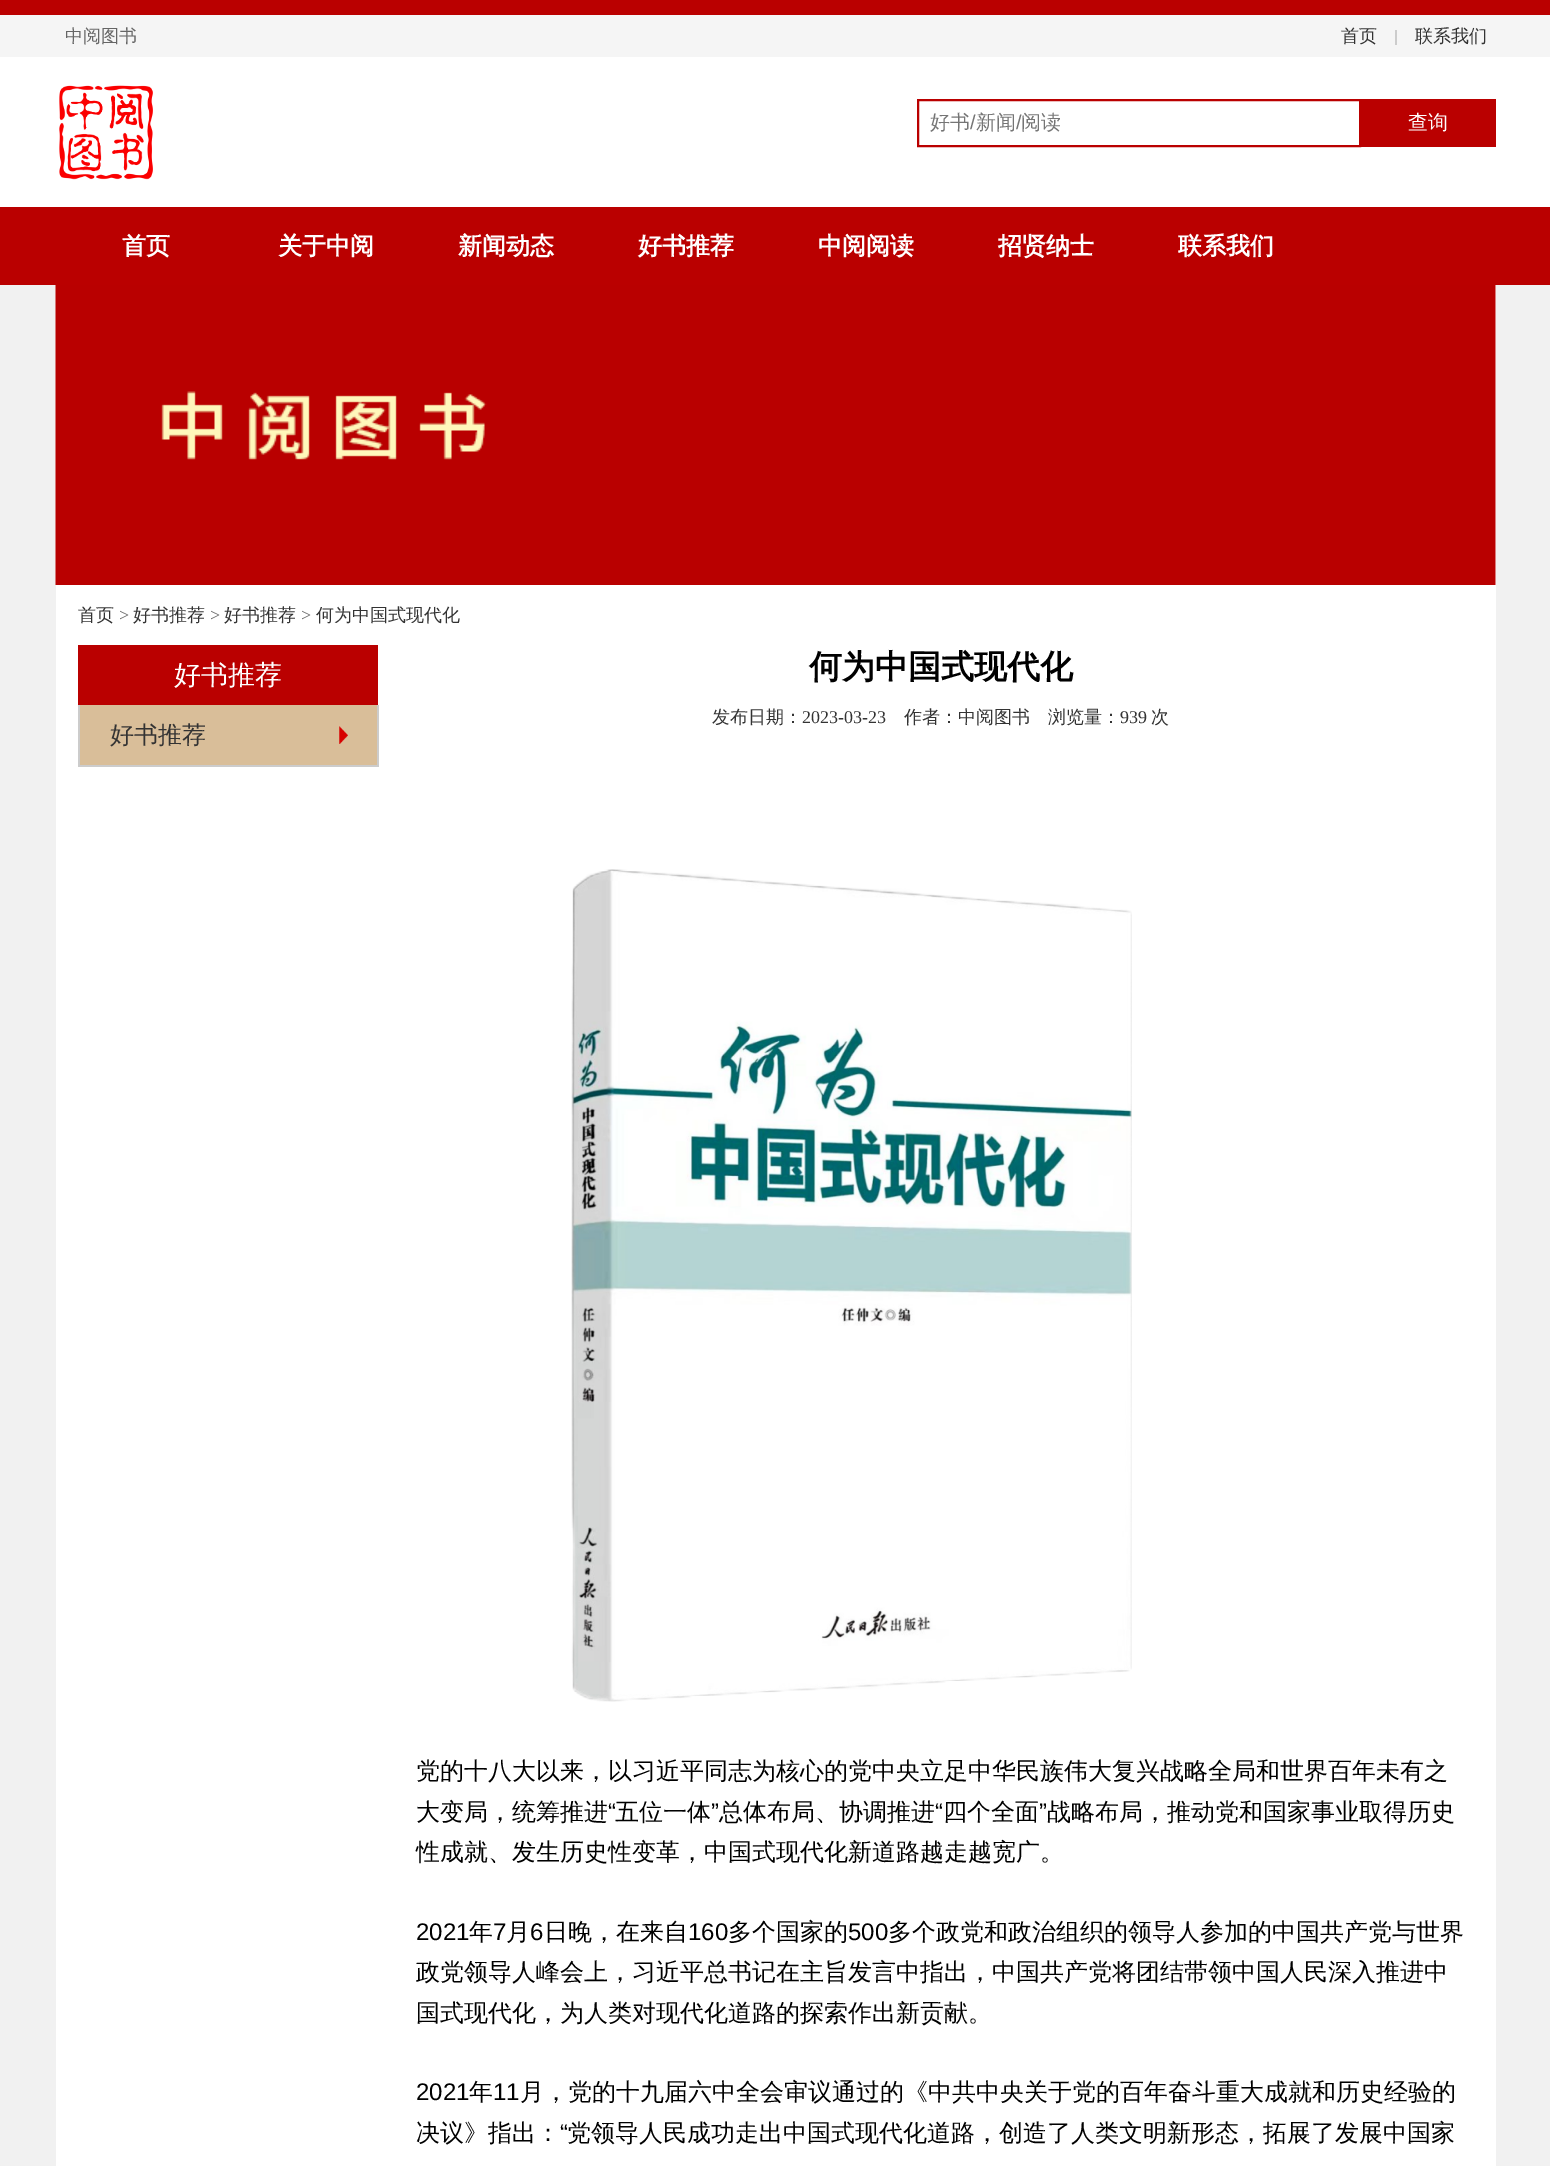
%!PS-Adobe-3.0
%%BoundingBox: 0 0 1550 2166
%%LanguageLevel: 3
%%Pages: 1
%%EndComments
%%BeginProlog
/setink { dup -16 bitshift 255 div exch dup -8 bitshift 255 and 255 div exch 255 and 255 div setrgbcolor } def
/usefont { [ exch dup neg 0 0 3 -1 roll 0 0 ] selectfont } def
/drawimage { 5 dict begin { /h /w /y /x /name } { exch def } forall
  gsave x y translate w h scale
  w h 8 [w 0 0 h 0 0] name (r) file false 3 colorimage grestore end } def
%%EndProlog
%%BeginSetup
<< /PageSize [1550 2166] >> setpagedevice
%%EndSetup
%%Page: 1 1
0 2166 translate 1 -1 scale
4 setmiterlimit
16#FFFFFF setink
0 0 1550 2166 rectfill
16#F5F5F5 setink
0 15 1550 42 rectfill
16#BA0000 setink
0 0 1550 15 rectfill
/WenQuanYiZenHei-Medium 18 usefont
16#666666 setink
65 42 moveto (中阅图书) show
16#333333 setink
1341 42 moveto (首页) show
16#CCCCCC setink
1395 30 2 15 rectfill
16#333333 setink
1415 42 moveto (联系我们) show
(img1.raw) 59 85 94 95 drawimage
16#BA0000 setink
2 setlinewidth
918 100 442 46 rectstroke
/WenQuanYiZenHei-Medium 20 usefont
16#757575 setink
930 129 moveto (好书) show
/LiberationSans-Regular 20 usefont
970 129 moveto (/) show
/WenQuanYiZenHei-Medium 20 usefont
976 129 moveto (新闻) show
/LiberationSans-Regular 20 usefont
1016 129 moveto (/) show
/WenQuanYiZenHei-Medium 20 usefont
1021 129 moveto (阅读) show
16#BA0000 setink
1361 99 135 48 rectfill
16#FFFFFF setink
1408 129 moveto (查询) show
16#BA0000 setink
0 207 1550 78 rectfill
/WenQuanYiZenHei-Bold 24 usefont
16#FFFFFF setink
[
    [(首页) 122 254]
    [(关于中阅) 278 254]
    [(新闻动态) 458 254]
    [(好书推荐) 638 254]
    [(中阅阅读) 818 254]
    [(招贤纳士) 998 254]
    [(联系我们) 1178 254]
] { aload pop moveto show } forall
16#F1F1F1 setink
0 285 1550 1881 rectfill
16#FFFFFF setink
56 285 1440 1881 rectfill
(img2.raw) 55 285 1441 300 drawimage
/WenQuanYiZenHei-Medium 18 usefont
16#333333 setink
78 621 moveto (首页) show
/LiberationSerif-Regular 18 usefont
16#666666 setink
119 621 moveto (>) show
/WenQuanYiZenHei-Medium 18 usefont
16#333333 setink
133 621 moveto (好书推荐) show
/LiberationSerif-Regular 18 usefont
16#666666 setink
210 621 moveto (>) show
/WenQuanYiZenHei-Medium 18 usefont
16#333333 setink
224 621 moveto (好书推荐) show
/LiberationSerif-Regular 18 usefont
16#666666 setink
301 621 moveto (>) show
/WenQuanYiZenHei-Medium 18 usefont
16#333333 setink
316 621 moveto (何为中国式现代化) show
16#BA0000 setink
78 645 300 60 rectfill
/WenQuanYiZenHei-Medium 27 usefont
16#FFFFFF setink
174 684 moveto (好书推荐) show
[
    [377 705 2 62 16#CCCCCC]
    [78 765 300 2 16#CCCCCC]
    [78 705 2 62 16#CCCCCC]
    [80 705 297 60 16#D9BE99]
] { aload pop setink rectfill } forall
(img3.raw) 339 726 9 18 drawimage
/WenQuanYiZenHei-Medium 24 usefont
16#333333 setink
110 743 moveto (好书推荐) show
/WenQuanYiZenHei-Bold 33 usefont
16#000000 setink
809 678 moveto (何为中国式现代化) show
/WenQuanYiZenHei-Medium 18 usefont
16#333333 setink
712 723 moveto (发布日期：) show
/LiberationSerif-Regular 18 usefont
802 723 moveto (2023-03-23) show
/WenQuanYiZenHei-Medium 18 usefont
904 723 moveto (作者：中阅图书) show
1048 723 moveto (浏览量：) show
/LiberationSerif-Regular 18 usefont
1120 723 moveto (939) show
/WenQuanYiZenHei-Medium 18 usefont
1151 723 moveto (次) show
(img4.raw) 571 869 561 833 drawimage
/WenQuanYiZenHei-Medium 24 usefont
16#000000 setink
416 1779 moveto (党的十八大以来，以习近平同志为核心的党中央立足中华民族伟大复兴战略全局和世界百年未有之) show
416 1820 moveto (大变局，统筹推进) show
/LiberationSans-Regular 24 usefont
608 1820 moveto (“) show
/WenQuanYiZenHei-Medium 24 usefont
615 1820 moveto (五位一体) show
/LiberationSans-Regular 24 usefont
711 1820 moveto (”) show
/WenQuanYiZenHei-Medium 24 usefont
719 1820 moveto (总体布局、协调推进) show
/LiberationSans-Regular 24 usefont
935 1820 moveto (“) show
/WenQuanYiZenHei-Medium 24 usefont
943 1820 moveto (四个全面) show
/LiberationSans-Regular 24 usefont
1039 1820 moveto (”) show
/WenQuanYiZenHei-Medium 24 usefont
1047 1820 moveto (战略布局，推动党和国家事业取得历史) show
416 1860 moveto (性成就、发生历史性变革，中国式现代化新道路越走越宽广。) show
/LiberationSans-Regular 24 usefont
416 1940 moveto (2021) show
/WenQuanYiZenHei-Medium 24 usefont
469 1940 moveto (年) show
/LiberationSans-Regular 24 usefont
493 1940 moveto (7) show
/WenQuanYiZenHei-Medium 24 usefont
506 1940 moveto (月) show
/LiberationSans-Regular 24 usefont
530 1940 moveto (6) show
/WenQuanYiZenHei-Medium 24 usefont
544 1940 moveto (日晚，在来自) show
/LiberationSans-Regular 24 usefont
688 1940 moveto (160) show
/WenQuanYiZenHei-Medium 24 usefont
728 1940 moveto (多个国家的) show
/LiberationSans-Regular 24 usefont
848 1940 moveto (500) show
/WenQuanYiZenHei-Medium 24 usefont
[
    [(多个政党和政治组织的领导人参加的中国共产党与世界) 888 1940]
    [(政党领导人峰会上，习近平总书记在主旨发言中指出，中国共产党将团结带领中国人民深入推进中) 416 1980]
    [(国式现代化，为人类对现代化道路的探索作出新贡献。) 416 2021]
] { aload pop moveto show } forall
/LiberationSans-Regular 24 usefont
416 2100 moveto (2021) show
/WenQuanYiZenHei-Medium 24 usefont
469 2100 moveto (年) show
/LiberationSans-Regular 24 usefont
493 2100 moveto (11) show
/WenQuanYiZenHei-Medium 24 usefont
520 2100 moveto (月，党的十九届六中全会审议通过的《中共中央关于党的百年奋斗重大成就和历史经验的) show
416 2141 moveto (决议》指出：) show
/LiberationSans-Regular 24 usefont
560 2141 moveto (“) show
/WenQuanYiZenHei-Medium 24 usefont
567 2141 moveto (党领导人民成功走出中国式现代化道路，创造了人类文明新形态，拓展了发展中国家) show
showpage
%%EOF
